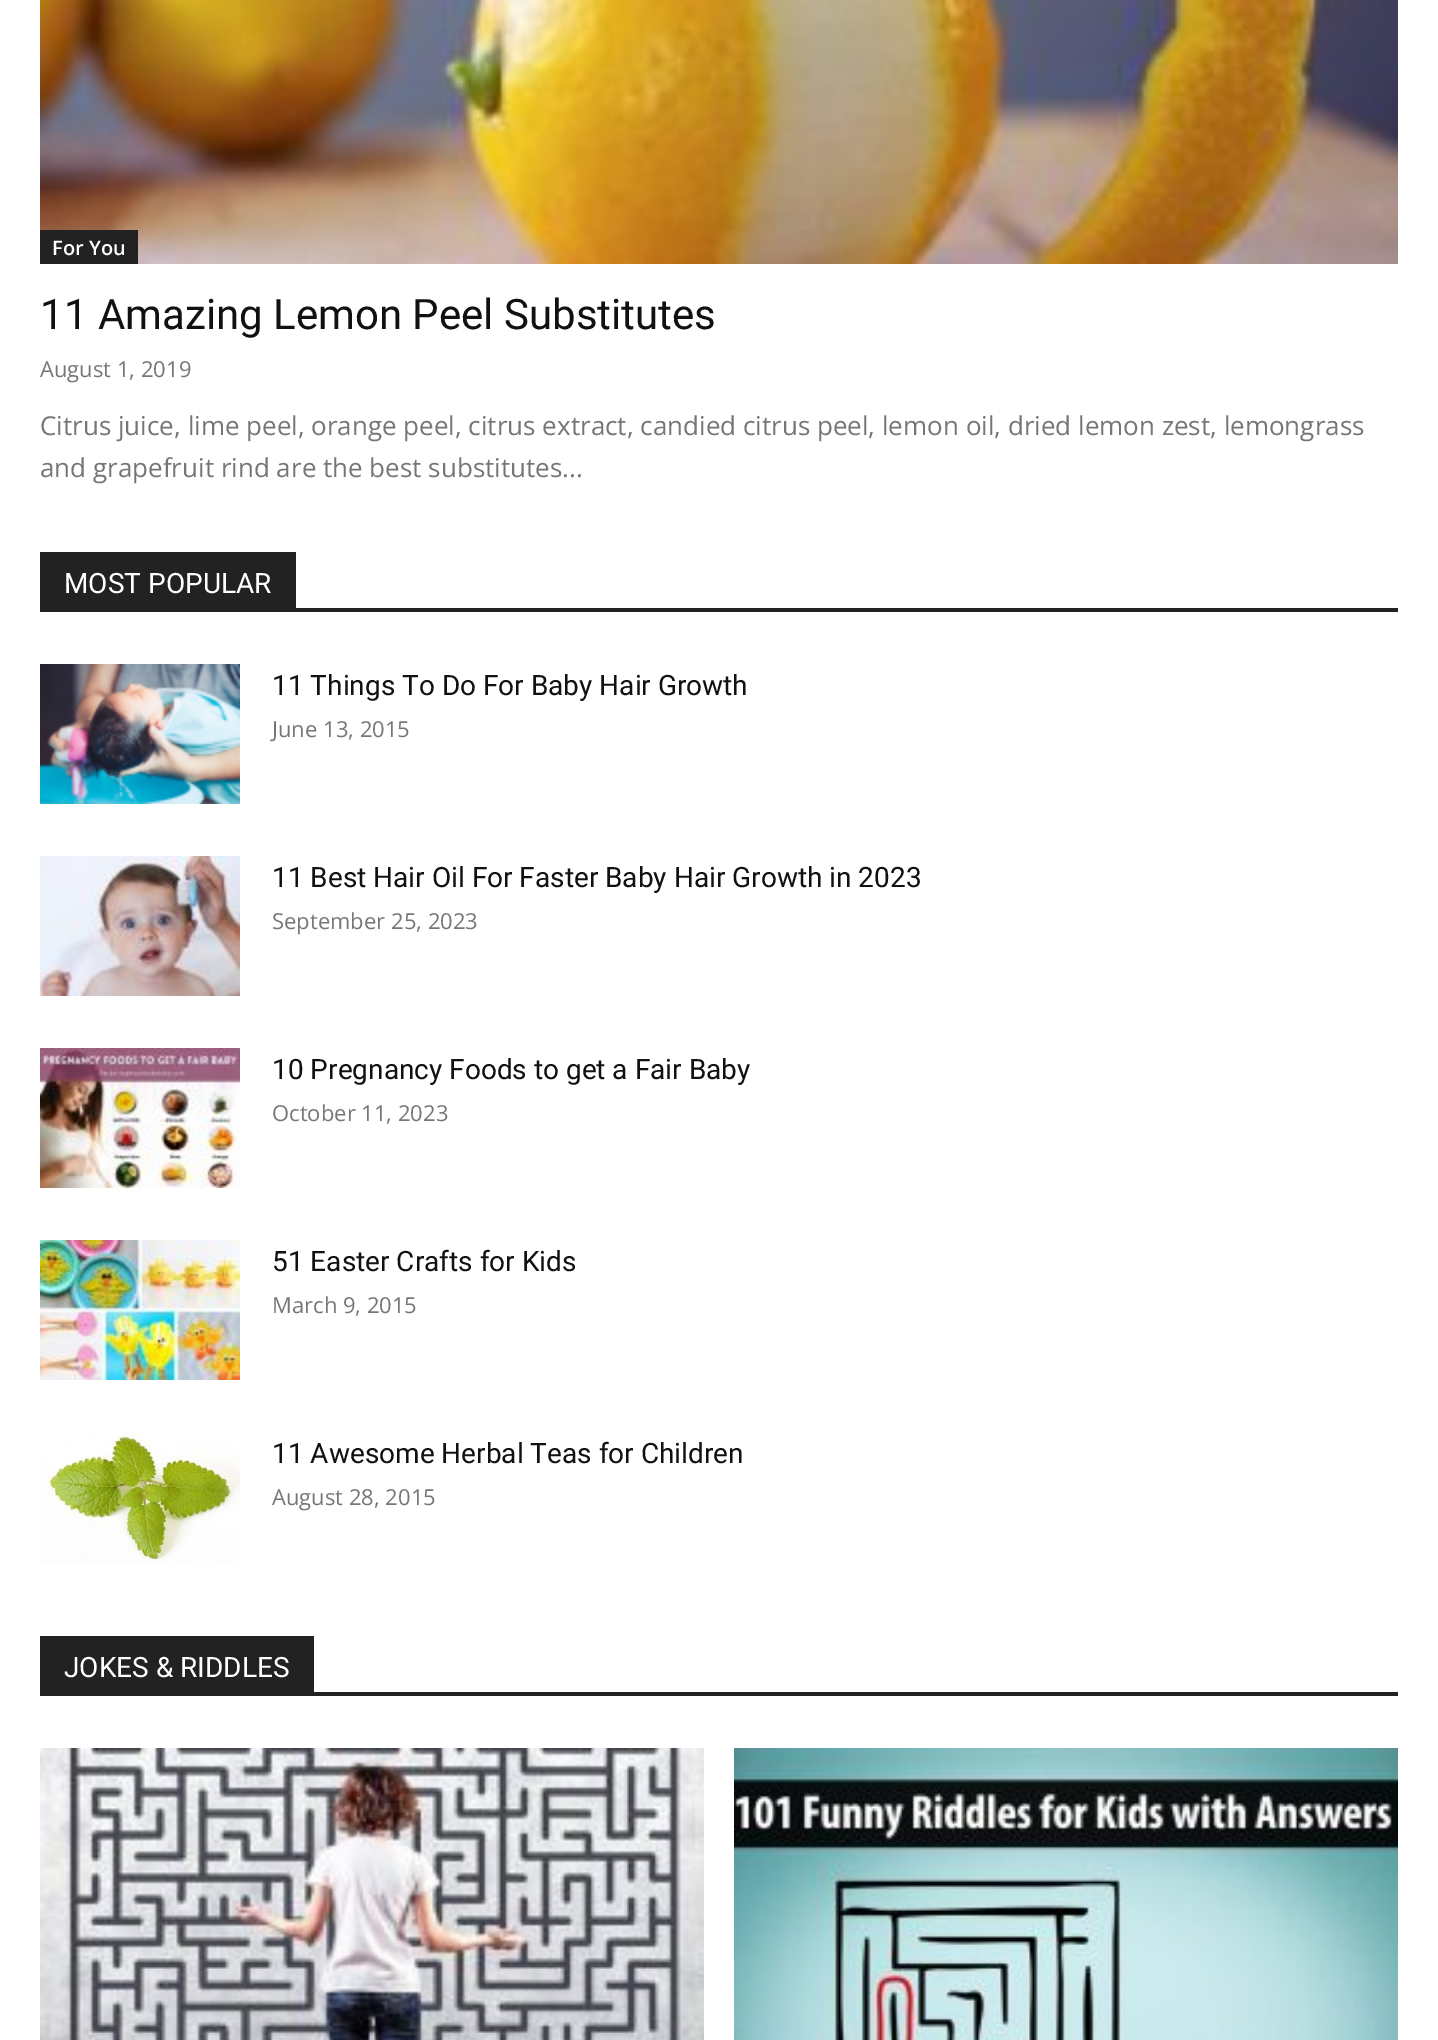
%!PS-Adobe-3.0
%%BoundingBox: 0 0 1438 2040
%%LanguageLevel: 3
%%Pages: 1
%%EndComments
%%BeginProlog
/setink { dup -16 bitshift 255 div exch dup -8 bitshift 255 and 255 div exch 255 and 255 div setrgbcolor } def
/usefont { [ exch dup neg 0 0 3 -1 roll 0 0 ] selectfont } def
/drawimage { 5 dict begin { /h /w /y /x /name } { exch def } forall
  gsave x y translate w h scale
  w h 8 [w 0 0 h 0 0] name (r) file false 3 colorimage grestore end } def
%%EndProlog
%%BeginSetup
<< /PageSize [1438 2040] >> setpagedevice
%%EndSetup
%%Page: 1 1
0 2040 translate 1 -1 scale
4 setmiterlimit
16#FFFFFF setink
0 0 1438 2040 rectfill
(img1.raw) 40 0 1358 264 drawimage
16#222222 setink
40 230 98 34 rectfill
/OpenSans-SemiBold 20 usefont
16#FFFFFF setink
52 255 moveto (For You) show
/Roboto-Regular 42 usefont
16#111111 setink
40 329 moveto (11 Amazing Lemon Peel Substitutes) show
/OpenSans-Regular 22 usefont
16#767676 setink
40 377 moveto (August 1, 2019) show
/OpenSans-Regular 26 usefont
40 435 moveto (Citrus juice, lime peel, orange peel, citrus extract, candied citrus peel, lemon oil, dried lemon zest, lemongrass) show
40 477 moveto (and grapefruit rind are the best substitutes...) show
16#222222 setink
40 608 1358 4 rectfill
40 552 256 56 rectfill
/Roboto-Regular 28 usefont
16#FFFFFF setink
64 593 moveto (MOST POPULAR) show
(img2.raw) 40 664 200 140 drawimage
16#111111 setink
272 695 moveto (11 Things To Do For Baby Hair Growth) show
/OpenSans-Regular 22 usefont
16#767676 setink
272 737 moveto (June 13, 2015) show
(img3.raw) 40 856 200 140 drawimage
/Roboto-Regular 28 usefont
16#111111 setink
272 887 moveto (11 Best Hair Oil For Faster Baby Hair Growth in 2023) show
/OpenSans-Regular 22 usefont
16#767676 setink
272 929 moveto (September 25, 2023) show
(img4.raw) 40 1048 200 140 drawimage
/Roboto-Regular 28 usefont
16#111111 setink
272 1079 moveto (10 Pregnancy Foods to get a Fair Baby) show
/OpenSans-Regular 22 usefont
16#767676 setink
272 1121 moveto (October 11, 2023) show
(img5.raw) 40 1240 200 140 drawimage
/Roboto-Regular 28 usefont
16#111111 setink
272 1271 moveto (51 Easter Crafts for Kids) show
/OpenSans-Regular 22 usefont
16#767676 setink
272 1313 moveto (March 9, 2015) show
(img6.raw) 40 1432 200 132 drawimage
/Roboto-Regular 28 usefont
16#111111 setink
272 1463 moveto (11 Awesome Herbal Teas for Children) show
/OpenSans-Regular 22 usefont
16#767676 setink
272 1505 moveto (August 28, 2015) show
16#222222 setink
40 1692 1358 4 rectfill
40 1636 274 56 rectfill
/Roboto-Regular 28 usefont
16#FFFFFF setink
64 1677 moveto (JOKES & RIDDLES) show
(img7.raw) 40 1748 664 292 drawimage
(img8.raw) 734 1748 664 292 drawimage
showpage
%%EOF
